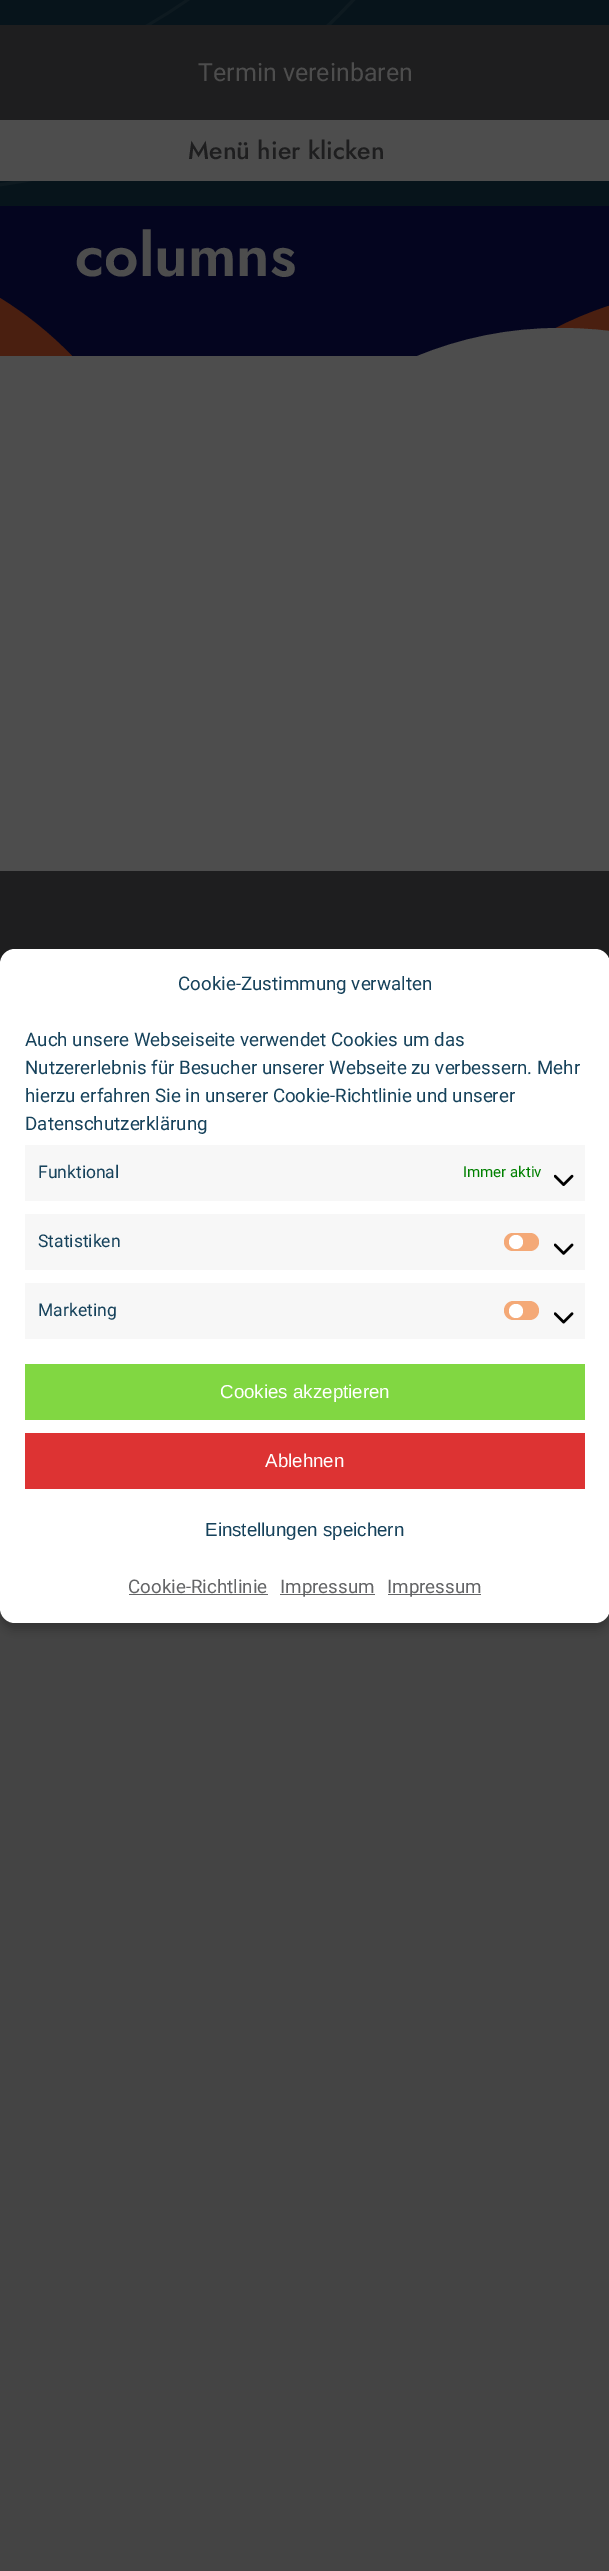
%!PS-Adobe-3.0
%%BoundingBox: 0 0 609 2571
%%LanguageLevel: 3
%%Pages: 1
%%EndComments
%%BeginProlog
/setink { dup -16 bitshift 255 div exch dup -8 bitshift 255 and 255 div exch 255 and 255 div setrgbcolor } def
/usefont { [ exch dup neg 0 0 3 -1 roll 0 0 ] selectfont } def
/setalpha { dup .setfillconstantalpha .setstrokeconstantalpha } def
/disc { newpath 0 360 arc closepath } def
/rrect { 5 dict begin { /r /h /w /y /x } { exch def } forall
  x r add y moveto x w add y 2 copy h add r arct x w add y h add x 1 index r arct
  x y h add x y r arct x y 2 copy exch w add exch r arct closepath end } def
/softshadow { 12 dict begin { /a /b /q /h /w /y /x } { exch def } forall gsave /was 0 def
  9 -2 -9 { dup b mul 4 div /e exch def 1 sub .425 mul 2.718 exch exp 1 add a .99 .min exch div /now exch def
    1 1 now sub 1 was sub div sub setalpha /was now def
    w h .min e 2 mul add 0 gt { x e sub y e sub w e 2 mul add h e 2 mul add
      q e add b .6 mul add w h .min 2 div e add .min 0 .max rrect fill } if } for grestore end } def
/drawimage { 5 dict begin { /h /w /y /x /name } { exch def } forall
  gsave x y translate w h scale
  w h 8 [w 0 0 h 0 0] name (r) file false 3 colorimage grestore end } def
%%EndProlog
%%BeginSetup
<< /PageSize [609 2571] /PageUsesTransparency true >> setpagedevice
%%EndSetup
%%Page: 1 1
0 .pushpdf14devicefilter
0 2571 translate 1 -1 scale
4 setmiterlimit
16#444444 setink
0 0 609 2571 rectfill
16#4D4D4D setink
0 356 609 515 rectfill
16#07141B setink
0 0 609 206 rectfill
16#0E1A20 setink
2.7 setlinewidth
-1 84.5 moveto 68.5 68.5 133 38.5 189.5 -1.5 curveto stroke
3 setlinewidth
-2 185 moveto 139 166.5 264.5 97.5 355.5 -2.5 curveto stroke
16#1E1E1F setink
0 25 609 95 rectfill
/Roboto-Regular 25 usefont
16#4D4D4D setink
198 81 moveto (Termin vereinbaren) show
0 120 609 61 rectfill
/Jost-Medium 25 usefont
16#1E1E1F setink
188 159 moveto (Menü hier klicken) show
16#04051F setink
0 206 609 150 rectfill
16#4A1F10 setink
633 342 moveto 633 299 lineto 596 308 562 323 531 342 curveto closepath fill
0 356 moveto 0 298 lineto 26 314 51 334 72 356 curveto closepath fill
gsave
0 206 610 150 rectclip
16#4D4D4D setink
560 328 moveto 509 328 460 338 415 357 curveto 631 357 lineto 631 334 lineto 608 330 584 328 560 328 curveto closepath fill
grestore
/Jost-SemiBold 60 usefont
16#4D4D4D setink
75 276 moveto (columns) show
16#1E1E1F setink
0 871 609 93 rectfill
16#000000 setink
0 956 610 674 15 4 0.23 softshadow
16#FFFFFF setink
0 949 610 674 15 rrect fill
/Roboto-Regular 18.75 usefont
16#16425B setink
[
    [(Cookie-Zustimmung verwalten) 178 990]
    [(Auch unsere Webseiseite verwendet Cookies um das) 25 1046]
    [(Nutzererlebnis für Besucher unserer Webseite zu verbessern. Mehr) 25 1074]
    [(hierzu erfahren Sie in unserer Cookie-Richtlinie und unserer) 25 1102]
    [(Datenschutzerklärung) 25 1130]
] { aload pop moveto show } forall
16#F7F7F7 setink
25 1145 560 56 rectfill
/Roboto-Regular 17.5 usefont
16#16425B setink
38 1178 moveto (Funktional) show
/Roboto-Regular 15 usefont
16#008000 setink
463 1177 moveto (Immer aktiv) show
(img1.raw) 554 1174 20 12 drawimage
16#F7F7F7 setink
25 1214 560 56 rectfill
/Roboto-Regular 17.5 usefont
16#16425B setink
38 1247 moveto (Statistiken) show
16#F4A977 setink
504 1233 35 18 9 rrect fill
16#FFFFFF setink
516 1242 7 disc fill
(img2.raw) 554 1243 20 12 drawimage
16#F7F7F7 setink
25 1283 560 56 rectfill
16#16425B setink
38 1316 moveto (Marketing) show
16#F4A977 setink
504 1301 35 19 9.5 rrect fill
16#FFFFFF setink
516 1311 7 disc fill
(img3.raw) 554 1312 20 12 drawimage
16#81D742 setink
25 1364 560 56 rectfill
/LiberationSans-Regular 18.75 usefont
16#FFFFFF setink
220 1398 moveto (Cookies akzeptieren) show
16#DD3333 setink
25 1433 560 56 rectfill
16#FFFFFF setink
265 1467 moveto (Ablehnen) show
16#16425B setink
205 1536 moveto (Einstellungen speichern) show
/Roboto-Regular 18.75 usefont
16#646567 setink
128 1593 moveto (Cookie-Richtlinie) show
129 1594 139 1 rectfill
280 1594 95 1 rectfill
280 1593 moveto (Impressum) show
388 1594 93 1 rectfill
387 1593 moveto (Impressum) show
.poppdf14devicefilter showpage
%%EOF
